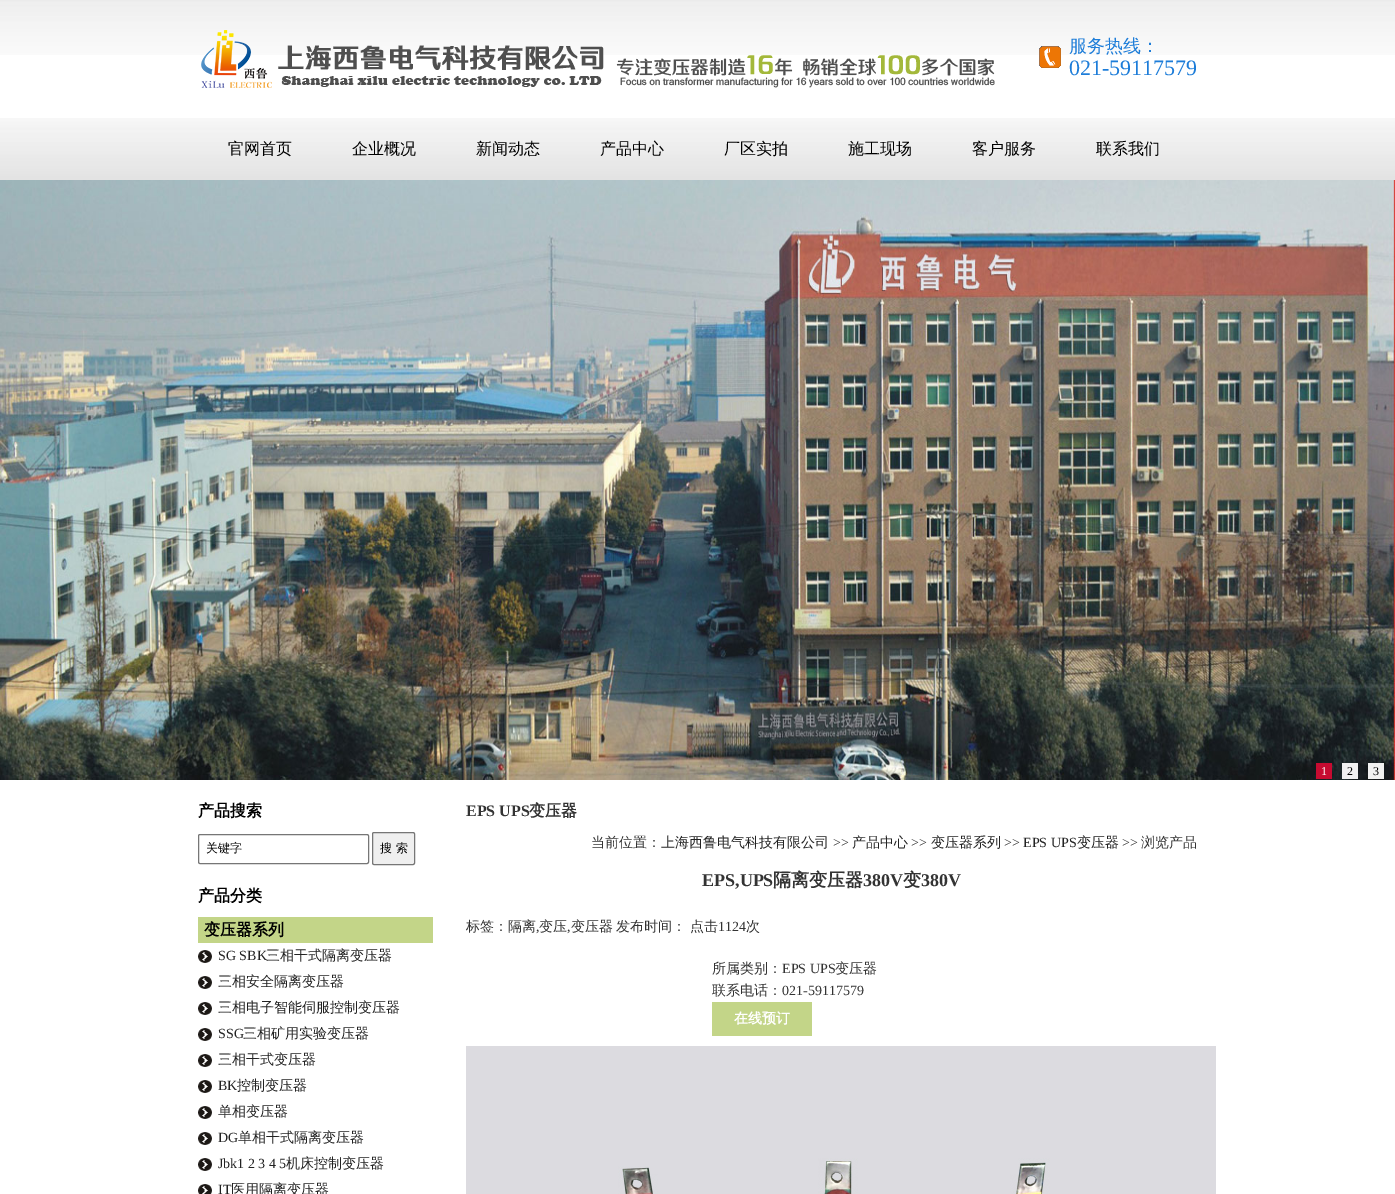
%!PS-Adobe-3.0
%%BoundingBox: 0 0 1395 1194
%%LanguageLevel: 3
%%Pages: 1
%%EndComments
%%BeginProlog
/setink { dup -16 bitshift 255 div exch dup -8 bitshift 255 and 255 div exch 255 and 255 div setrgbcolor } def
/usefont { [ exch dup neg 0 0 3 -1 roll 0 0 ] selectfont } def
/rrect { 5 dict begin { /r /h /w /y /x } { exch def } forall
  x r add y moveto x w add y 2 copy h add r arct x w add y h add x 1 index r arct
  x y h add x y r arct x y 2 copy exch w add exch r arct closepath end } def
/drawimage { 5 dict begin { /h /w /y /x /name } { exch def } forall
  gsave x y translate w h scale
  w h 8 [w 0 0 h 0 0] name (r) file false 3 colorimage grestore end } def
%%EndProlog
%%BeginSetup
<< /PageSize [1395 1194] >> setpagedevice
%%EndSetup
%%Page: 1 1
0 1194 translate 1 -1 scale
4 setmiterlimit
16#FFFFFF setink
0 0 1395 1194 rectfill
(img1.raw) 0 0 1395 55 drawimage
(img2.raw) 201 30 794 58 drawimage
(img3.raw) 1039 46 22 22 drawimage
/WenQuanYiZenHei-Medium 18 usefont
16#1D7DD9 setink
1069 52 moveto (服务热线：) show
/LiberationSerif-Regular 22 usefont
1069 75 moveto (021-59117579) show
(img4.raw) 0 118 1395 62 drawimage
/WenQuanYiZenHei-Medium 16 usefont
16#000000 setink
[
    [(官网首页) 228 154]
    [(企业概况) 352 154]
    [(新闻动态) 476 154]
    [(产品中心) 600 154]
    [(厂区实拍) 724 154]
    [(施工现场) 848 154]
    [(客户服务) 972 154]
    [(联系我们) 1096 154]
] { aload pop moveto show } forall
(img5.raw) 0 180 1395 600 drawimage
16#C70B31 setink
1316 763 16 16 rectfill
/LiberationSerif-Regular 12 usefont
16#FFFFFF setink
1321 775 moveto (1) show
16#F1F1F1 setink
1342 763 16 16 rectfill
16#000000 setink
1347 775 moveto (2) show
16#F1F1F1 setink
1368 763 16 16 rectfill
16#000000 setink
1373 775 moveto (3) show
/WenQuanYiZenHei-Bold 16 usefont
198 816 moveto (产品搜索) show
16#767676 setink
198.5 834.5 170 29 1.5 rrect stroke
/WenQuanYiZenHei-Medium 12 usefont
16#000000 setink
206 852 moveto (关键字) show
16#EFEFEF setink
372.5 832.5 42 32 1.5 rrect gsave fill grestore
16#767676 setink
stroke
16#000000 setink
380 852 moveto (搜 索) show
/WenQuanYiZenHei-Bold 16 usefont
198 901 moveto (产品分类) show
16#C3D588 setink
198 917 235 26 rectfill
16#000000 setink
204 935 moveto (变压器系列) show
(img6.raw) 198 950 14 13 drawimage
/LiberationSerif-Regular 14 usefont
16#222222 setink
218 960 moveto (SG SBK) show
/WenQuanYiZenHei-Medium 14 usefont
266 960 moveto (三相干式隔离变压器) show
(img6.raw) 198 976 14 13 drawimage
218 986 moveto (三相安全隔离变压器) show
(img6.raw) 198 1002 14 13 drawimage
218 1012 moveto (三相电子智能伺服控制变压器) show
(img6.raw) 198 1028 14 13 drawimage
/LiberationSerif-Regular 14 usefont
218 1038 moveto (SSG) show
/WenQuanYiZenHei-Medium 14 usefont
243 1038 moveto (三相矿用实验变压器) show
(img6.raw) 198 1054 14 13 drawimage
218 1064 moveto (三相干式变压器) show
(img6.raw) 198 1080 14 13 drawimage
/LiberationSerif-Regular 14 usefont
218 1090 moveto (BK) show
/WenQuanYiZenHei-Medium 14 usefont
237 1090 moveto (控制变压器) show
(img6.raw) 198 1106 14 13 drawimage
218 1116 moveto (单相变压器) show
(img6.raw) 198 1132 14 13 drawimage
/LiberationSerif-Regular 14 usefont
218 1142 moveto (DG) show
/WenQuanYiZenHei-Medium 14 usefont
238 1142 moveto (单相干式隔离变压器) show
(img6.raw) 198 1158 14 13 drawimage
/LiberationSerif-Regular 14 usefont
218 1168 moveto (Jbk1 2 3 4 5) show
/WenQuanYiZenHei-Medium 14 usefont
286 1168 moveto (机床控制变压器) show
(img7.raw) 198 1184 14 10 drawimage
/LiberationSerif-Regular 14 usefont
218 1194 moveto (IT) show
/WenQuanYiZenHei-Medium 14 usefont
231 1194 moveto (医用隔离变压器) show
/LiberationSerif-Bold 16 usefont
16#333333 setink
466 816 moveto (EPS UPS) show
/WenQuanYiZenHei-Bold 16 usefont
529 816 moveto (变压器) show
/WenQuanYiZenHei-Medium 14 usefont
591 847 moveto (当前位置：) show
16#222222 setink
661 847 moveto (上海西鲁电气科技有限公司) show
/LiberationSerif-Regular 14 usefont
16#333333 setink
833 847 moveto (>>) show
/WenQuanYiZenHei-Medium 14 usefont
16#222222 setink
852 847 moveto (产品中心) show
/LiberationSerif-Regular 14 usefont
16#333333 setink
911 847 moveto (>>) show
/WenQuanYiZenHei-Medium 14 usefont
16#222222 setink
931 847 moveto (变压器系列) show
/LiberationSerif-Regular 14 usefont
16#333333 setink
1004 847 moveto (>>) show
16#222222 setink
1023 847 moveto (EPS UPS) show
/WenQuanYiZenHei-Medium 14 usefont
1077 847 moveto (变压器) show
/LiberationSerif-Regular 14 usefont
16#333333 setink
1122 847 moveto (>>) show
/WenQuanYiZenHei-Medium 14 usefont
1141 847 moveto (浏览产品) show
/LiberationSerif-Bold 18 usefont
702 886 moveto (EPS,UPS) show
/WenQuanYiZenHei-Bold 18 usefont
773 886 moveto (隔离变压器) show
/LiberationSerif-Bold 18 usefont
863 886 moveto (380V) show
/WenQuanYiZenHei-Bold 18 usefont
903 886 moveto (变) show
/LiberationSerif-Bold 18 usefont
921 886 moveto (380V) show
/WenQuanYiZenHei-Medium 14 usefont
[
    [(标签：隔离) 466 931]
    [(变压) 539 931]
    [(变压器) 571 931]
    [(发布时间：) 616 931]
    [(点击) 690 931]
] { aload pop moveto show } forall
/LiberationSerif-Regular 14 usefont
718 931 moveto (1124) show
/WenQuanYiZenHei-Medium 14 usefont
746 931 moveto (次) show
/LiberationSerif-Regular 14 usefont
536 931 moveto (,) show
567 931 moveto (,) show
/WenQuanYiZenHei-Medium 14 usefont
712 973 moveto (所属类别：) show
/LiberationSerif-Regular 14 usefont
782 973 moveto (EPS UPS) show
/WenQuanYiZenHei-Medium 14 usefont
835 973 moveto (变压器) show
712 995 moveto (联系电话：) show
/LiberationSerif-Regular 14 usefont
782 995 moveto (021-59117579) show
16#C3D588 setink
712 1002 100 34 rectfill
/WenQuanYiZenHei-Bold 14 usefont
16#FFFFFF setink
734 1023 moveto (在线预订) show
(img8.raw) 466 1046 750 148 drawimage
showpage
%%EOF
